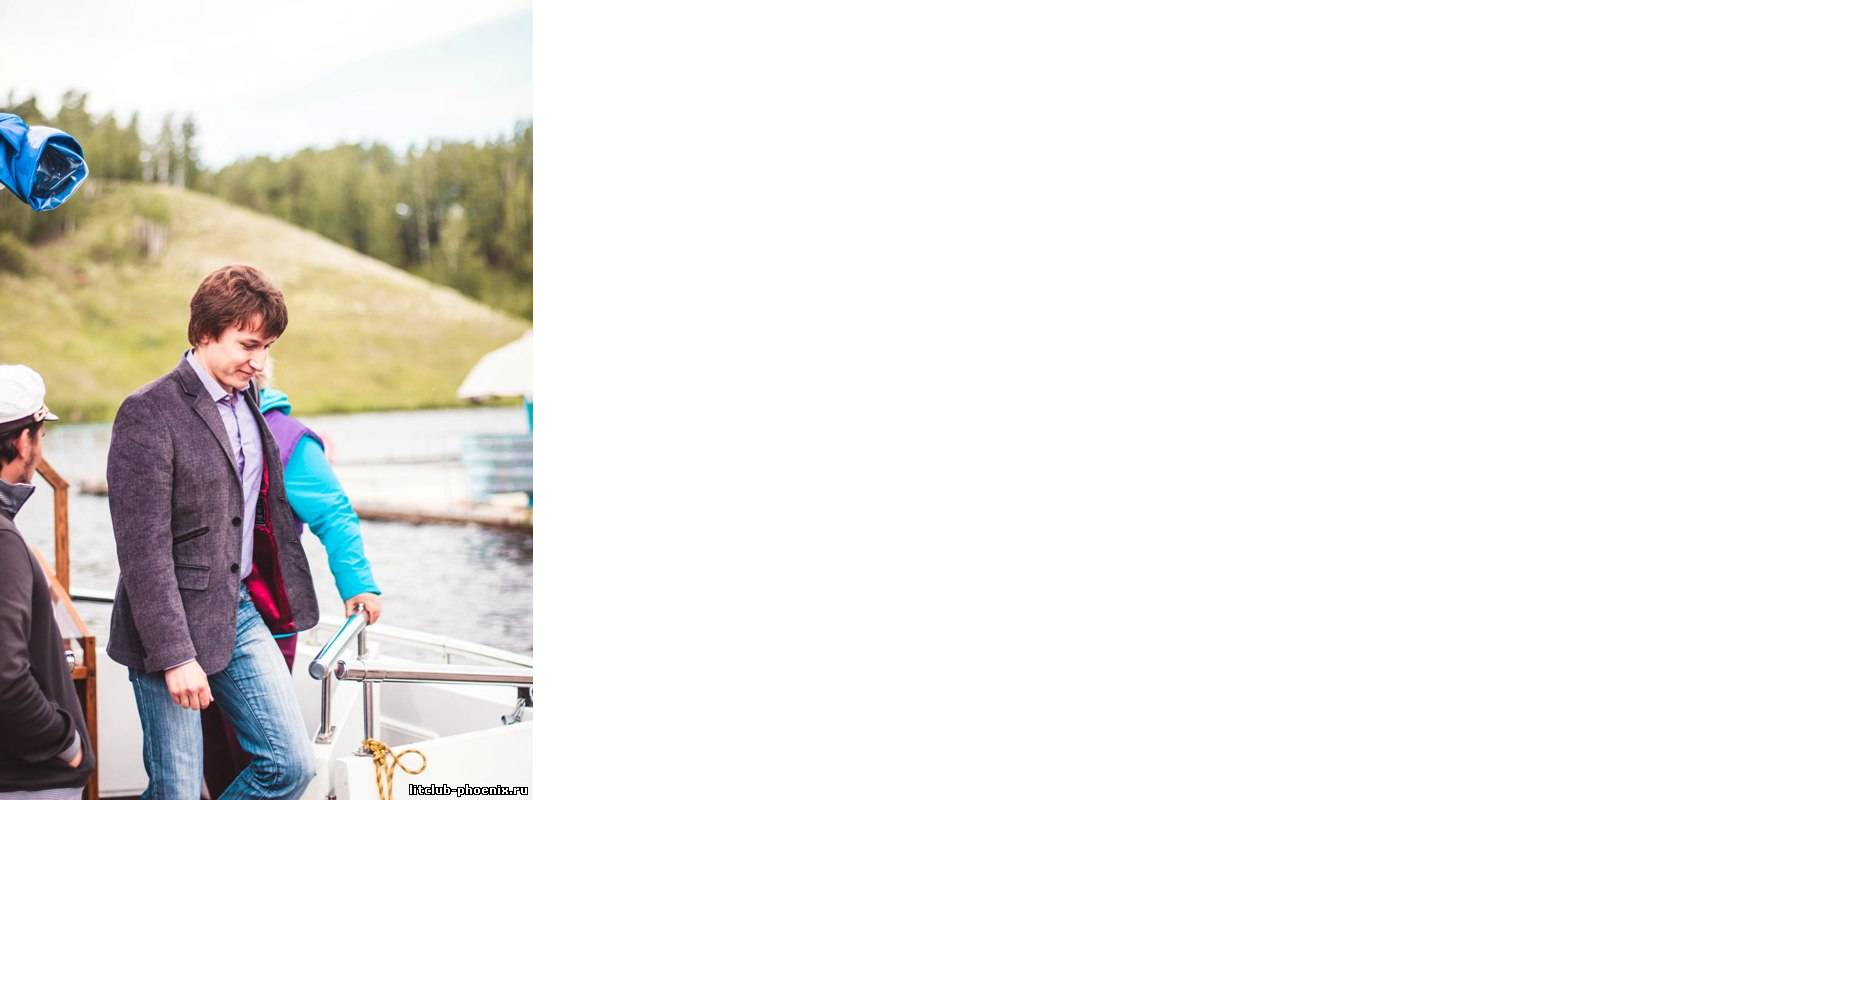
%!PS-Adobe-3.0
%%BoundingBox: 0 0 1870 983
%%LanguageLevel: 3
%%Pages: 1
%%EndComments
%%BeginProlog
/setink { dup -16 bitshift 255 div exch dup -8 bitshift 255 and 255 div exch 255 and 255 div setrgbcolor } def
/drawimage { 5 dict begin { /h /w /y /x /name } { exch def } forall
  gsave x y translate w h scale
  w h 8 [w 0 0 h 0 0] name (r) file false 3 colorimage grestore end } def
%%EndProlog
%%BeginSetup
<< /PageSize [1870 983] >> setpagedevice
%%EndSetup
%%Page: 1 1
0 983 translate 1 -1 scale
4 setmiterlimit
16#FFFFFF setink
0 0 1870 983 rectfill
(img1.raw) 0 0 533 800 drawimage
showpage
%%EOF
